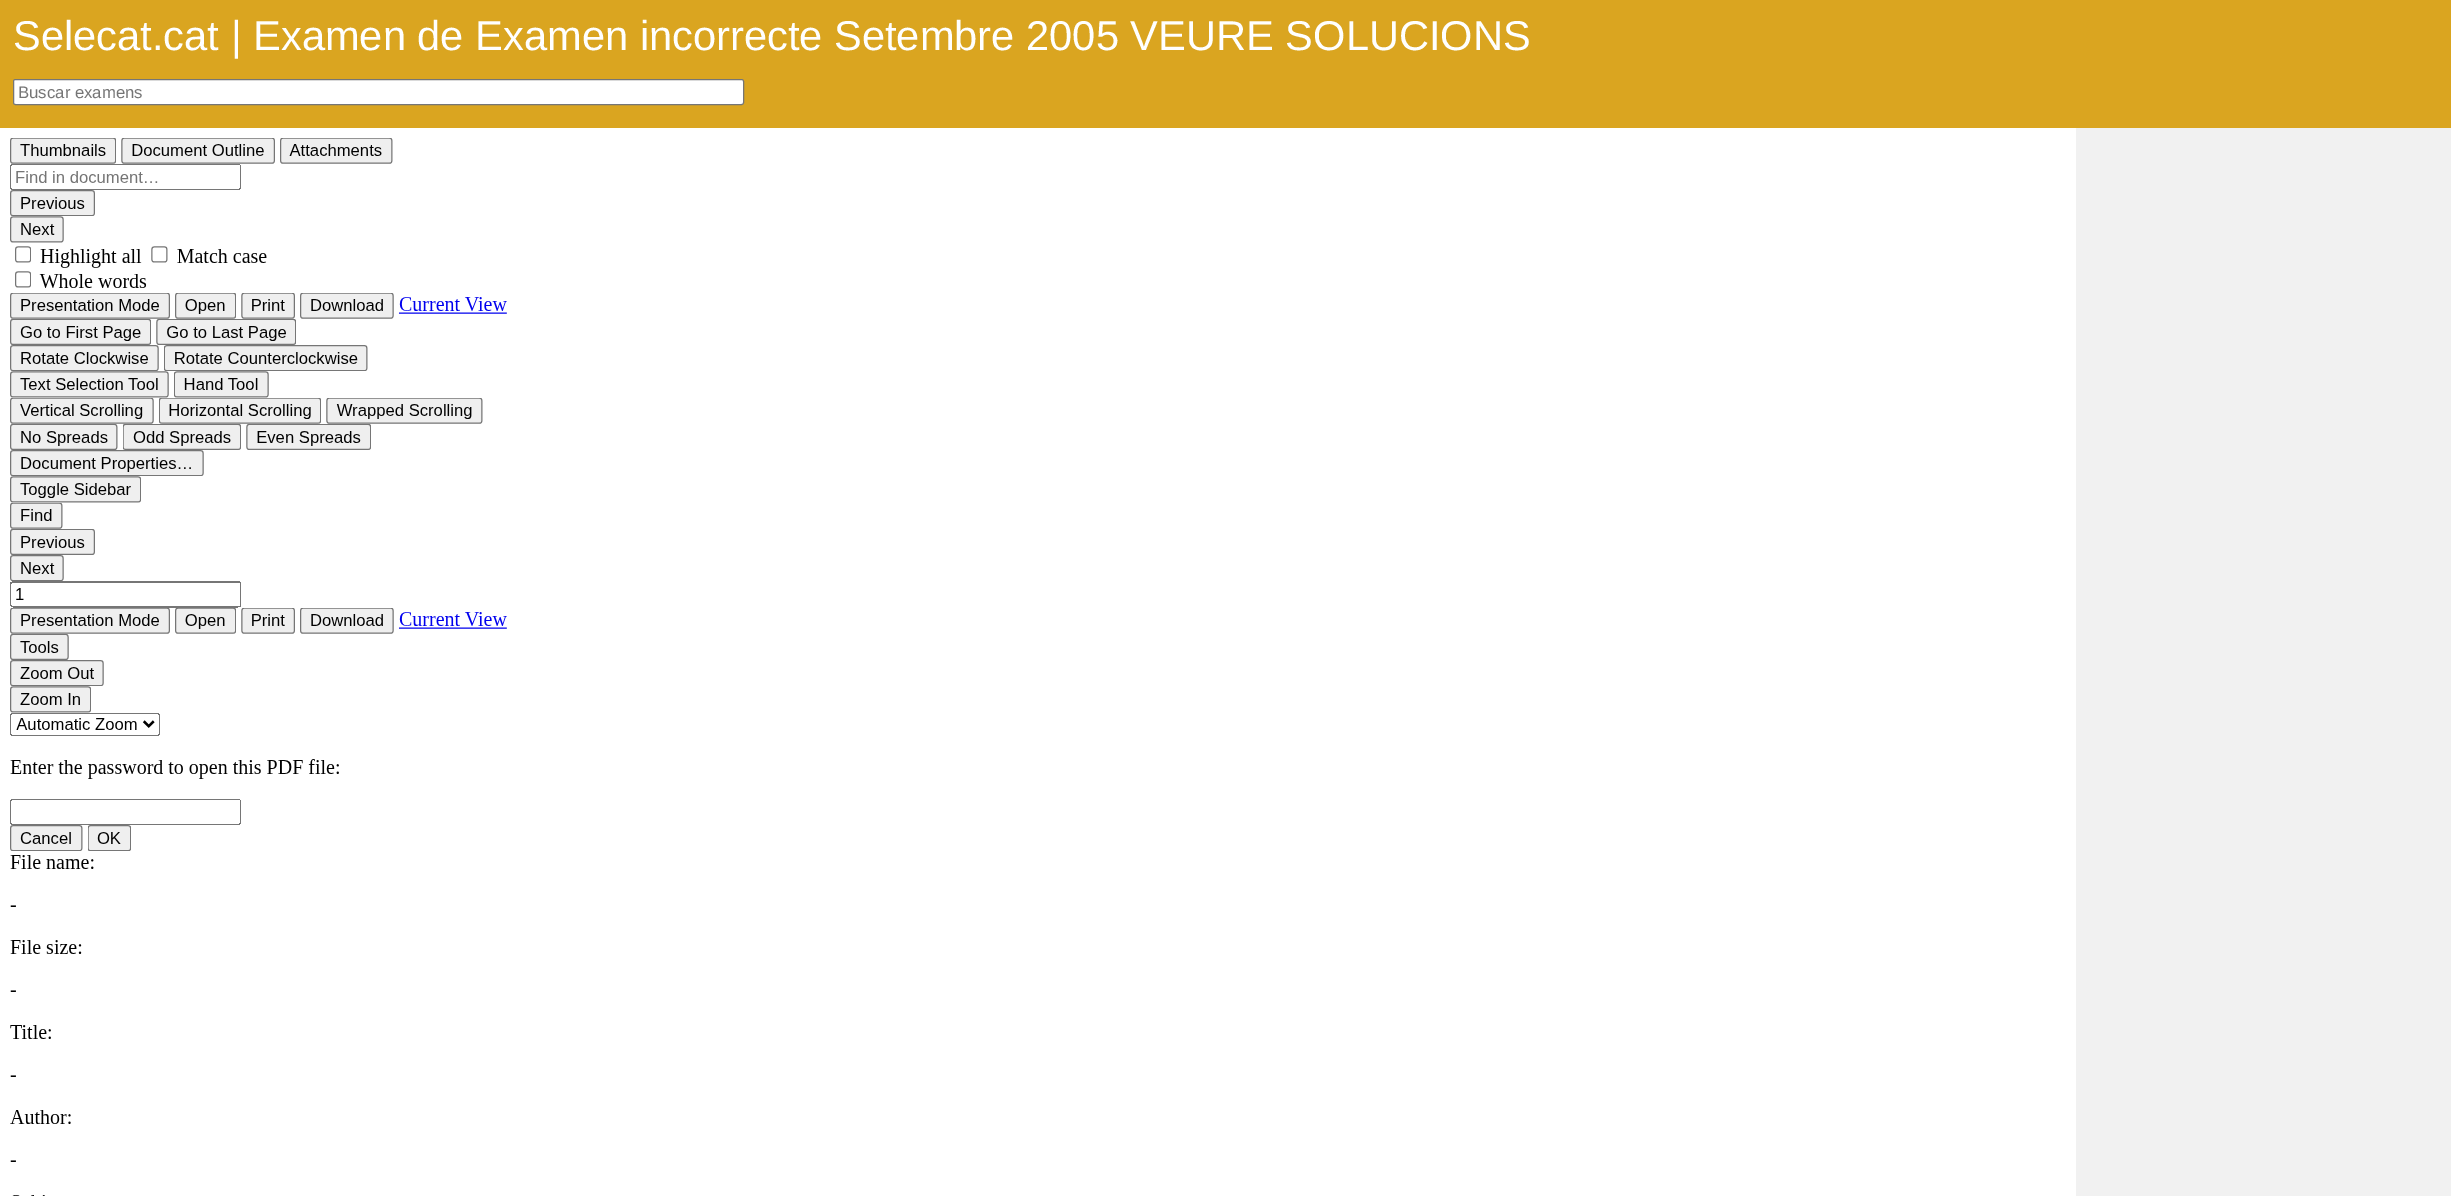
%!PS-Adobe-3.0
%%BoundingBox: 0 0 2451 1196
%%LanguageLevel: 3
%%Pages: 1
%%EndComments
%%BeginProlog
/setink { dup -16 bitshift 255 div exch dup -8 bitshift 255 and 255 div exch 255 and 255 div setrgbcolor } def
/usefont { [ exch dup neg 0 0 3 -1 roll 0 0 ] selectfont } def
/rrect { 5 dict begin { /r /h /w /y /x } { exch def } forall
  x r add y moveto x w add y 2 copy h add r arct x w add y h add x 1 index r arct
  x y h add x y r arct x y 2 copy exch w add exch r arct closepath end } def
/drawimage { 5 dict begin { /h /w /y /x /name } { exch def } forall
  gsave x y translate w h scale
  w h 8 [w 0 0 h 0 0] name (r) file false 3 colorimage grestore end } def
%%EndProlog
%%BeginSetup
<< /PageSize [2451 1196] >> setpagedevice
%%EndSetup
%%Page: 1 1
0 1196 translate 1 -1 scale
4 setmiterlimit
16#FFFFFF setink
0 0 2451 1196 rectfill
16#DAA520 setink
0 0 2451 128 rectfill
/LiberationSans-Regular 41.65 usefont
16#FFFFFF setink
13 50 moveto (Selecat.cat | Examen de Examen incorrecte Setembre 2005 VEURE SOLUCIONS) show
13.5 79.5 730 25 2 rrect gsave fill grestore
16#767676 setink
stroke
/LiberationSans-Regular 16.75 usefont
16#757575 setink
18 98 moveto (Buscar examens) show
(img1.raw) 10 138 497 1058 drawimage
16#F1F1F1 setink
2076 128 375 1068 rectfill
showpage
%%EOF
